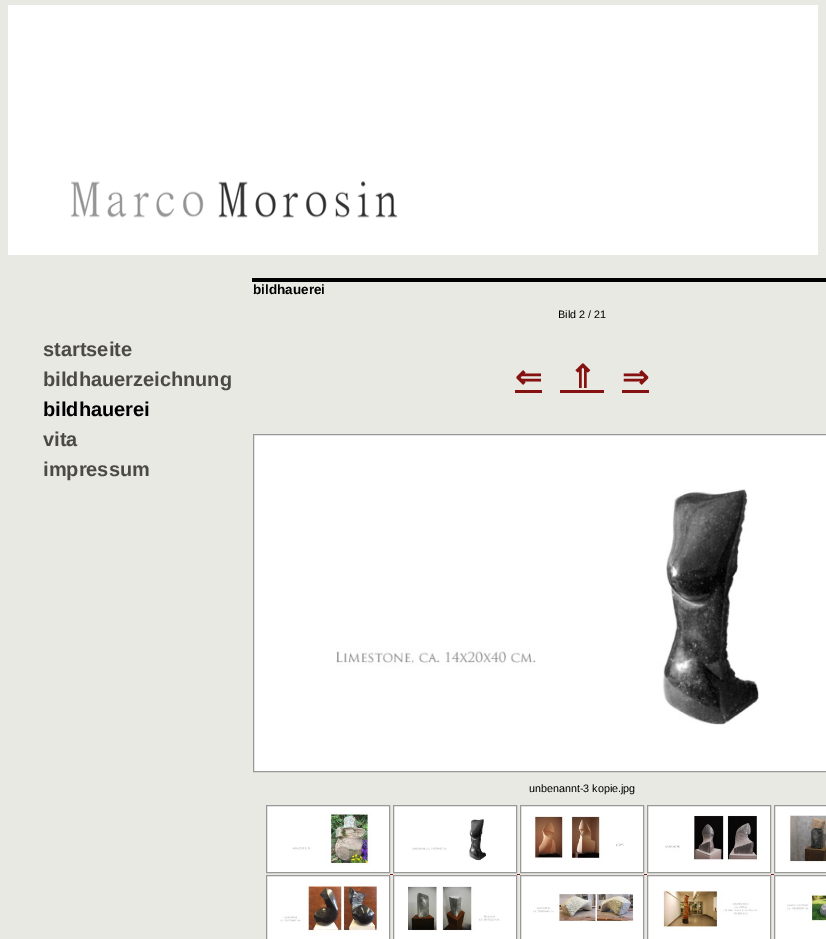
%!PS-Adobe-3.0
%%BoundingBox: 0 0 826 939
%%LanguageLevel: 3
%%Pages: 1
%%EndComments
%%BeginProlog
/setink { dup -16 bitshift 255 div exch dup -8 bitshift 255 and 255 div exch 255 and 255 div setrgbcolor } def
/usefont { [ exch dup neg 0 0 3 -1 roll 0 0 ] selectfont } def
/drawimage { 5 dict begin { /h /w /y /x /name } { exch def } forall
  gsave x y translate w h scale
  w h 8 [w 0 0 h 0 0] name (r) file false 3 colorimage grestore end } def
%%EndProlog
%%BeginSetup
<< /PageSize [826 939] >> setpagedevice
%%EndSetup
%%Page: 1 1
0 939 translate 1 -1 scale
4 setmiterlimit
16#E9E9E3 setink
0 0 826 939 rectfill
16#FFFFFF setink
8 5 810 250 rectfill
(img1.raw) 71 181 327 37 drawimage
/LiberationSans-Bold 20 usefont
16#4C4A44 setink
43 356 moveto (startseite) show
43 386 moveto (bildhauerzeichnung) show
16#000000 setink
43 416 moveto (bildhauerei) show
16#4C4A44 setink
43 446 moveto (vita) show
43 476 moveto (impressum) show
16#000000 setink
252 278 574 4 rectfill
/LiberationSans-Bold 13.5 usefont
253 294 moveto (bildhauerei) show
/LiberationSans-Regular 10.75 usefont
558 318 moveto (Bild 2 / 21) show
/DejaVuSans-Bold 32 usefont
16#851111 setink
515 388 moveto (⇐) show
515 390 27 3 rectfill
569 388 moveto (⇑) show
560 390 44 3 rectfill
622 388 moveto (⇒) show
622 390 27 3 rectfill
16#FFFFFF setink
253.5 434.5 moveto 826.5 434.5 lineto 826.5 771.5 lineto 253.5 771.5 lineto closepath gsave fill grestore
16#999999 setink
stroke
(img2.raw) 336 489 423 236 drawimage
/LiberationSans-Regular 10.75 usefont
16#000000 setink
529 792 moveto (unbenannt-3 kopie.jpg) show
16#FFFFFF setink
266.5 805.5 moveto 389.5 805.5 lineto 389.5 872.5 lineto 266.5 872.5 lineto closepath gsave fill grestore
16#999999 setink
stroke
16#FFFFFF setink
393.5 805.5 moveto 516.5 805.5 lineto 516.5 872.5 lineto 393.5 872.5 lineto closepath gsave fill grestore
16#999999 setink
stroke
16#FFFFFF setink
520.5 805.5 moveto 643.5 805.5 lineto 643.5 872.5 lineto 520.5 872.5 lineto closepath gsave fill grestore
16#999999 setink
stroke
16#FFFFFF setink
647.5 805.5 moveto 770.5 805.5 lineto 770.5 872.5 lineto 647.5 872.5 lineto closepath gsave fill grestore
16#999999 setink
stroke
16#FFFFFF setink
774.5 805.5 moveto 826.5 805.5 lineto 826.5 872.5 lineto 774.5 872.5 lineto closepath gsave fill grestore
16#999999 setink
stroke
(img3.raw) 292 811 79 54 drawimage
(img4.raw) 412 818 74 43 drawimage
(img5.raw) 534 815 90 45 drawimage
(img6.raw) 665 815 94 46 drawimage
(img7.raw) 789 814 37 51 drawimage
[
    [390 874 3 1 16#851111]
    [517 874 3 1 16#851111]
    [644 874 3 1 16#851111]
    [771 874 3 1 16#851111]
] { aload pop setink rectfill } forall
16#FFFFFF setink
266.5 875.5 moveto 389.5 875.5 lineto 389.5 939.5 lineto 266.5 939.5 lineto closepath gsave fill grestore
16#999999 setink
stroke
16#FFFFFF setink
393.5 875.5 moveto 516.5 875.5 lineto 516.5 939.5 lineto 393.5 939.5 lineto closepath gsave fill grestore
16#999999 setink
stroke
16#FFFFFF setink
520.5 875.5 moveto 643.5 875.5 lineto 643.5 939.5 lineto 520.5 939.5 lineto closepath gsave fill grestore
16#999999 setink
stroke
16#FFFFFF setink
647.5 875.5 moveto 770.5 875.5 lineto 770.5 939.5 lineto 647.5 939.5 lineto closepath gsave fill grestore
16#999999 setink
stroke
16#FFFFFF setink
774.5 875.5 moveto 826.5 875.5 lineto 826.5 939.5 lineto 774.5 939.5 lineto closepath gsave fill grestore
16#999999 setink
stroke
(img8.raw) 280 881 100 54 drawimage
(img9.raw) 408 886 93 45 drawimage
(img10.raw) 533 890 101 34 drawimage
(img11.raw) 662 890 96 40 drawimage
(img12.raw) 785 890 41 36 drawimage
showpage
%%EOF
